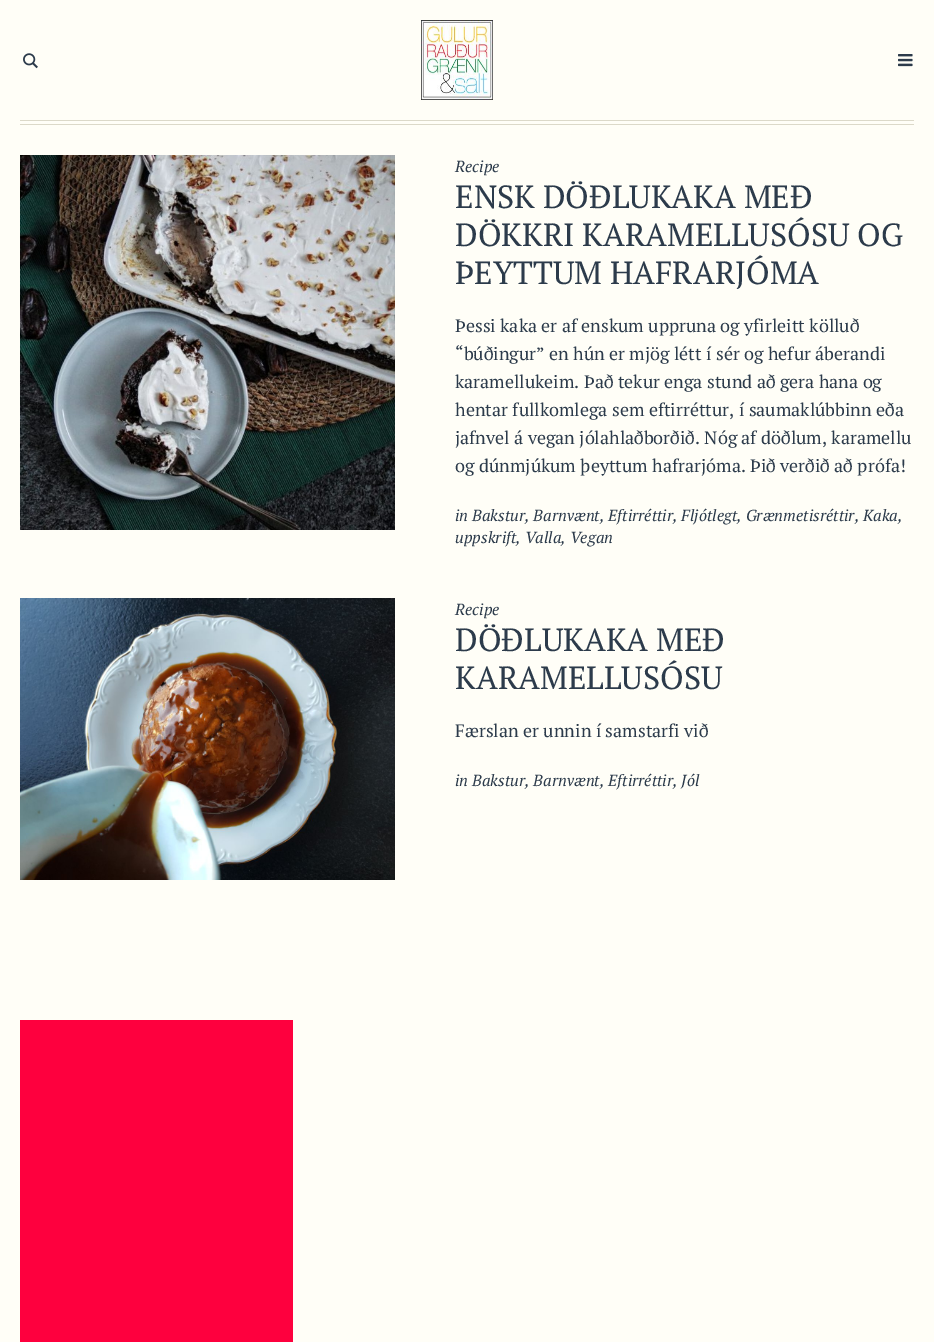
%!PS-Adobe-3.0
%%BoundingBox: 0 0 934 1342
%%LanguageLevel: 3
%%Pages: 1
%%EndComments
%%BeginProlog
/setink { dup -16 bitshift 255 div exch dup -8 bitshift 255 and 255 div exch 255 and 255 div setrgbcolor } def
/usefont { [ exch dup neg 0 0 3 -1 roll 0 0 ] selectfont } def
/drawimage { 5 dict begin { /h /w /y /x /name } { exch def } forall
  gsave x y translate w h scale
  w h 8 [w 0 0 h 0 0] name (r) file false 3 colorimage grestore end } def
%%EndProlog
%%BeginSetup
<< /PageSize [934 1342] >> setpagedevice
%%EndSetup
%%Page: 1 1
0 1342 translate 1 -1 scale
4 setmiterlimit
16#FFFEF7 setink
0 0 934 1342 rectfill
16#DCD9C9 setink
20 120 894 1 rectfill
20 124 894 1 rectfill
(img1.raw) 23 53 15 16 drawimage
(img2.raw) 421 20 72 80 drawimage
(img3.raw) 898 54 15 13 drawimage
(img4.raw) 20 155 375 375 drawimage
/PTSerif-Italic 16 usefont
16#2C3B4B setink
455 172 moveto (Recipe) show
/PTSerif-Regular 32 usefont
[
    [(ENSK DÖÐLUKAKA MEÐ) 455 208]
    [(DÖKKRI KARAMELLUSÓSU OG) 455 246]
    [(ÞEYTTUM HAFRARJÓMA) 455 284]
] { aload pop moveto show } forall
/PTSerif-Regular 18 usefont
[
    [(Þessi kaka er af enskum uppruna og yfirleitt kölluð) 455 332]
    [(“búðingur” en hún er mjög létt í sér og hefur áberandi) 455 360]
    [(karamellukeim. Það tekur enga stund að gera hana og) 455 388]
    [(hentar fullkomlega sem eftirréttur, í saumaklúbbinn eða) 455 416]
    [(jafnvel á vegan jólahlaðborðið. Nóg af döðlum, karamellu) 455 444]
    [(og dúnmjúkum þeyttum hafrarjóma. Þið verðið að prófa!) 455 472]
] { aload pop moveto show } forall
/PTSerif-Italic 16 usefont
455 521 moveto (in Bakstur, Barnvænt, Eftirréttir, Fljótlegt, Grænmetisréttir, Kaka,) show
455 543 moveto (uppskrift, Valla, Vegan) show
(img5.raw) 20 598 375 282 drawimage
455 615 moveto (Recipe) show
/PTSerif-Regular 32 usefont
455 651 moveto (DÖÐLUKAKA MEÐ) show
455 689 moveto (KARAMELLUSÓSU) show
/PTSerif-Regular 18 usefont
455 737 moveto (Færslan er unnin í samstarfi við) show
/PTSerif-Italic 16 usefont
455 786 moveto (in Bakstur, Barnvænt, Eftirréttir, Jól) show
16#FE003E setink
20 1020 273 322 rectfill
showpage
%%EOF
